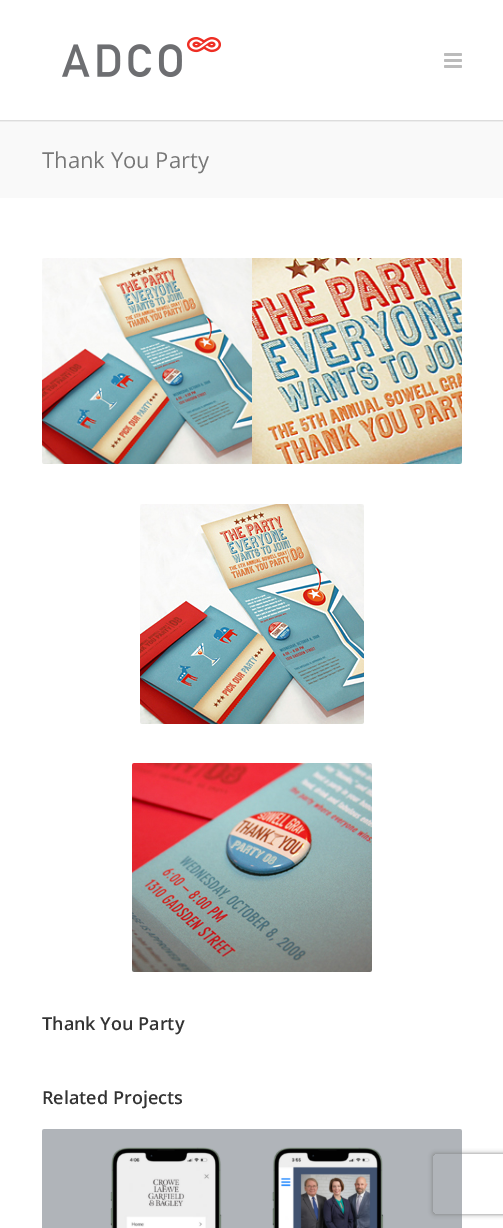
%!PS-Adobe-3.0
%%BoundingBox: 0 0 503 1228
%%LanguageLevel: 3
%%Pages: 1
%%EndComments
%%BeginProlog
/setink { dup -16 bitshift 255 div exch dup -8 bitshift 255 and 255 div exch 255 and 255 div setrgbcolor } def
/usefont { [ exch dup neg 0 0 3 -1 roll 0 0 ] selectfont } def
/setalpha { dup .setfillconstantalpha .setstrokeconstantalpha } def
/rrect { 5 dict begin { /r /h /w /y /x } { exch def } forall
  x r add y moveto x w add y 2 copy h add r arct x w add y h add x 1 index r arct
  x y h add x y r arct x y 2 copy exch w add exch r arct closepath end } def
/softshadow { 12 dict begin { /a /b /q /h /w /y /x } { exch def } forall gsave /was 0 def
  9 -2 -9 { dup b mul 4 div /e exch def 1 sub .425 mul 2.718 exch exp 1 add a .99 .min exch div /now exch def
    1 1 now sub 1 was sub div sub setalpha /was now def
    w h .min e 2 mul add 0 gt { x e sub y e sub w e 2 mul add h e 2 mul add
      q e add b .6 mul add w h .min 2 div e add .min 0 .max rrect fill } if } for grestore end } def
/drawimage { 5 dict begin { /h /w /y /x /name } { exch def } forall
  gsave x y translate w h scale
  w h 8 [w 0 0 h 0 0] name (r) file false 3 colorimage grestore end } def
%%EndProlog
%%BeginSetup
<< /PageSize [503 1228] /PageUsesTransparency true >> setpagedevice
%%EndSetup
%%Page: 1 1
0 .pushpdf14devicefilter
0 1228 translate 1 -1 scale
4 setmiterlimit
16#FFFFFF setink
0 0 503 1228 rectfill
16#F9F9F9 setink
0 120 503 78 rectfill
gsave
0 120 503 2 rectclip
16#000000 setink
-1 -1 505 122 0 1 0.16 softshadow
grestore
(img1.raw) 62 37 159 40 drawimage
(img2.raw) 444 53 18 15 drawimage
/OpenSans-Regular 22 usefont
16#777777 setink
42 168 moveto (Thank You Party) show
(img3.raw) 42 258 420 206 drawimage
(img4.raw) 140 504 224 220 drawimage
(img5.raw) 132 763 240 209 drawimage
/OpenSans-SemiBold 18 usefont
16#333333 setink
42 1030 moveto (Thank You Party) show
42 1104 moveto (Related Projects) show
(img6.raw) 42 1129 420 99 drawimage
gsave
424 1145 moveto 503 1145 lineto 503 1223 lineto 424 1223 lineto closepath 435 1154 moveto 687 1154 lineto 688 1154 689 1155 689 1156 curveto 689 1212 lineto 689 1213 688 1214 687 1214 curveto 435 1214 lineto 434 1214 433 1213 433 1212 curveto 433 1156 lineto 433 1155 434 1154 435 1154 curveto closepath eoclip newpath
16#808080 setink
433 1154 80 60 2 2.5 1 softshadow
grestore
.poppdf14devicefilter showpage
%%EOF
